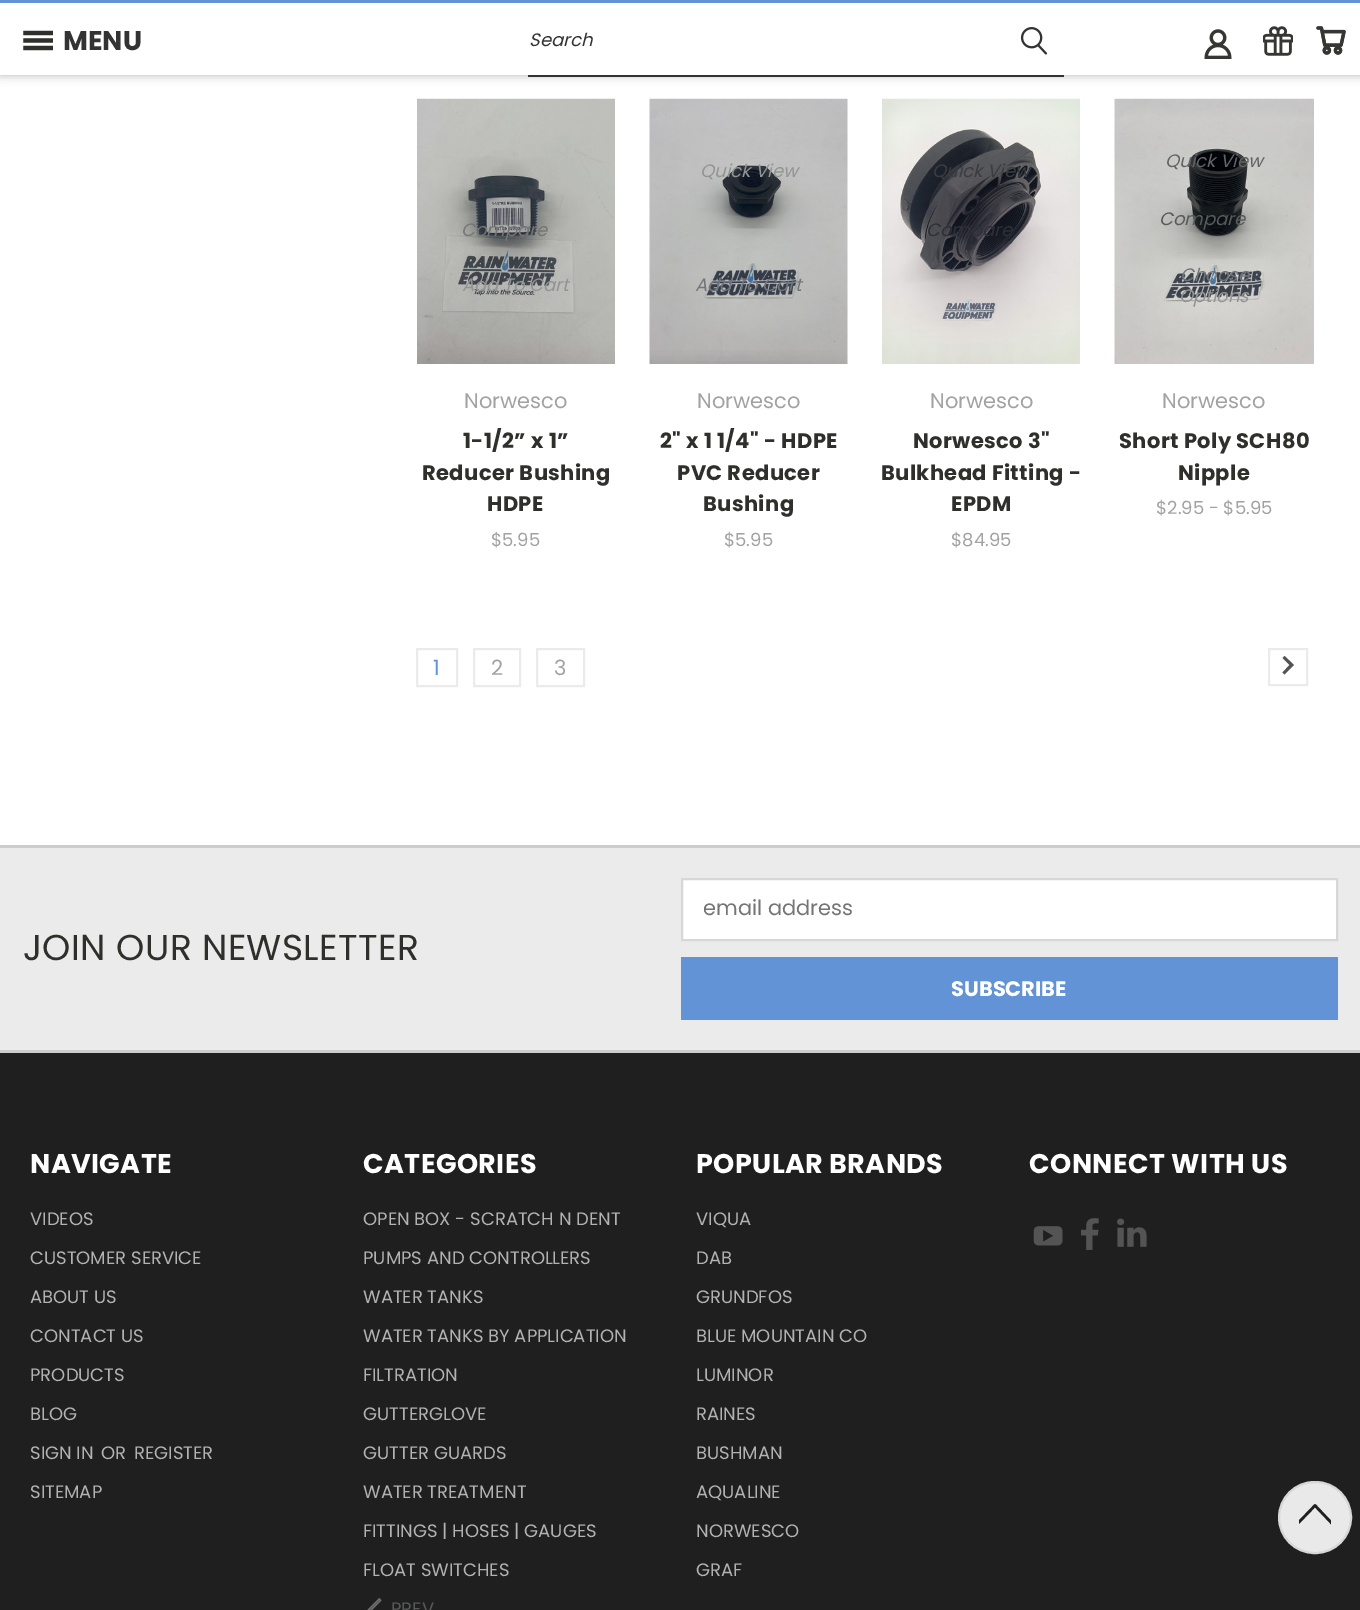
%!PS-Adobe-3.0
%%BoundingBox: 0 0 1360 1610
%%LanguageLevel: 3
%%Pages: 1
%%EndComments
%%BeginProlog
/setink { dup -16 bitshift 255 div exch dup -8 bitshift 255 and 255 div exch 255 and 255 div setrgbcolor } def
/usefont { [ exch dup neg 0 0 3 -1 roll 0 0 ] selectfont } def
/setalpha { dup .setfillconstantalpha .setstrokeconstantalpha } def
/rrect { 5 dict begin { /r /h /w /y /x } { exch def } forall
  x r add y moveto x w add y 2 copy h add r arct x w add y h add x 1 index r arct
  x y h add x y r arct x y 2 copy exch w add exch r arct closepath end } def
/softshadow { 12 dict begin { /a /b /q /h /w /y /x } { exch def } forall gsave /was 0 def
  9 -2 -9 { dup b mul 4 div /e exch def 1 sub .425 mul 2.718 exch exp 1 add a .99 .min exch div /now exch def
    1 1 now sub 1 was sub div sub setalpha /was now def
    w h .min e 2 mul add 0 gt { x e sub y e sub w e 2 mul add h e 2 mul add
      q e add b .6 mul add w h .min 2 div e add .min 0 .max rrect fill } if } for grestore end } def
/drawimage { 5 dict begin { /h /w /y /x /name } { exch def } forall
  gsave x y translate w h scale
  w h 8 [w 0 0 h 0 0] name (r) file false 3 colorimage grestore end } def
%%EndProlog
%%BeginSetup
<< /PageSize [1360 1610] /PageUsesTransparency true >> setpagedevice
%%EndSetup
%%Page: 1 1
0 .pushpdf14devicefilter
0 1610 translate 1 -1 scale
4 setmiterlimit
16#FFFFFF setink
0 0 1360 1610 rectfill
16#000000 setink
0 0 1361 75 0 5 0.3 softshadow
16#FFFFFF setink
0 3 1360 72 rectfill
16#6293D6 setink
0 0 1360 3 rectfill
(img1.raw) 23 30 30 21 drawimage
/Poppins-Bold 27 usefont
16#333333 setink
63 50 moveto (MENU) show
528 75 536 2 rectfill
/Poppins-Italic 18 usefont
529 46 moveto (Search) show
(img2.raw) 1020 27 28 28 drawimage
(img3.raw) 1204 29 28 30 drawimage
(img4.raw) 1263 26 30 30 drawimage
(img5.raw) 1316 26 30 29 drawimage
(img6.raw) 417 98 198 266 drawimage
16#757575 setink
461 236 moveto (Compare) show
16#929493 setink
462 291 moveto (Add To Cart) show
/Poppins-Regular 21 usefont
16#A2A2A2 setink
464 408 moveto (Norwesco) show
/Poppins-Bold 21 usefont
16#2F2F2B setink
463 448 moveto 0.4 0 (1-1/2” x 1”) ashow
422 480 moveto 0.4 0 (Reducer Bushing) ashow
487 511 moveto 0.4 0 (HDPE) ashow
/Poppins-Regular 18 usefont
16#A2A2A2 setink
491 546 moveto ($5.95) show
(img7.raw) 649 98 199 266 drawimage
/Poppins-Italic 18 usefont
16#929493 setink
700 177 moveto (Quick View) show
16#72767C setink
695 291 moveto (Add To Cart) show
/Poppins-Regular 21 usefont
16#A2A2A2 setink
697 408 moveto (Norwesco) show
/Poppins-Bold 21 usefont
16#2F2F2B setink
660 448 moveto 0.4 0 (2" x 1 1/4" - HDPE) ashow
677 480 moveto 0.4 0 (PVC Reducer) ashow
703 511 moveto 0.4 0 (Bushing) ashow
/Poppins-Regular 18 usefont
16#A2A2A2 setink
724 546 moveto ($5.95) show
(img8.raw) 882 98 198 266 drawimage
/Poppins-Italic 18 usefont
16#3A3C42 setink
932 177 moveto (Quick View) show
16#2D2F37 setink
926 236 moveto (Compare) show
/Poppins-Regular 21 usefont
16#A2A2A2 setink
930 408 moveto (Norwesco) show
/Poppins-Bold 21 usefont
16#2F2F2B setink
913 448 moveto 0.4 0 (Norwesco 3") ashow
881 480 moveto 0.4 0 (Bulkhead Fitting -) ashow
951 511 moveto 0.4 0 (EPDM) ashow
/Poppins-Regular 18 usefont
16#A2A2A2 setink
951 546 moveto ($84.95) show
(img9.raw) 1114 98 200 266 drawimage
/Poppins-Italic 18 usefont
16#626364 setink
1165 167 moveto (Quick View) show
16#575A5A setink
1159 225 moveto (Compare) show
16#72767C setink
1180 281 moveto (Choose) show
16#929493 setink
1179 302 moveto (Options) show
/Poppins-Regular 21 usefont
16#A2A2A2 setink
1162 408 moveto (Norwesco) show
/Poppins-Bold 21 usefont
16#2F2F2B setink
1119 448 moveto 0.4 0 (Short Poly SCH80) ashow
1178 480 moveto 0.4 0 (Nipple) ashow
/Poppins-Regular 18 usefont
16#A2A2A2 setink
1156 514 moveto ($2.95 - $5.95) show
16#EBEBEB setink
2 setlinewidth
417 649 40 37 rectstroke
/Poppins-Regular 21 usefont
16#6293D6 setink
433 675 moveto (1) show
16#EBEBEB setink
474 649 46 37 rectstroke
16#A2A2A2 setink
491 675 moveto (2) show
16#EBEBEB setink
537 649 47 37 rectstroke
16#A2A2A2 setink
554 675 moveto (3) show
16#EBEBEB setink
1269 649 38 36 rectstroke
16#545454 setink
1284.5 656 moveto 1282.5 658 lineto 1289.5 665 lineto 1282.5 672.5 lineto 1284.5 674.5 lineto 1294 665 lineto closepath fill
16#EBEBEB setink
0 848 1360 202 rectfill
16#CDCCCC setink
0 845 1360 3 rectfill
/Poppins-Regular 36 usefont
16#2F2F2B setink
23 960 moveto 0.4 0 (JOIN OUR NEWSLETTER) ashow
16#FFFFFF setink
682 879 moveto 1337 879 lineto 1337 940 lineto 682 940 lineto closepath gsave fill grestore
16#D7D7D7 setink
stroke
gsave
704 893 612 31 rectclip
/Poppins-Regular 21 usefont
16#757575 setink
703 915 moveto (email address) show
grestore
16#6293D6 setink
681 957 657 63 rectfill
/Poppins-Bold 21 usefont
16#FFFFFF setink
951 996 moveto (SUBSCRIBE) show
16#1F1F1F setink
0 1053 1360 557 rectfill
16#CDCCCC setink
0 1050 1360 3 rectfill
/Poppins-Bold 27 usefont
16#FFFFFF setink
30 1173 moveto 0.4 0 (NAVIGATE) ashow
/Poppins-Regular 18 usefont
16#B2B2B2 setink
[
    [(VIDEOS) 30 1225]
    [(CUSTOMER SERVICE) 30 1264]
    [(ABOUT US) 30 1303]
    [(CONTACT US) 30 1342]
    [(PRODUCTS) 30 1381]
    [(BLOG) 30 1420]
    [(SIGN IN) 30 1459]
    [(OR) 101 1459]
    [(REGISTER) 134 1459]
    [(SITEMAP) 30 1498]
] { aload pop moveto show } forall
/Poppins-Bold 27 usefont
16#FFFFFF setink
363 1173 moveto 0.4 0 (CATEGORIES) ashow
/Poppins-Regular 18 usefont
16#B2B2B2 setink
[
    [(OPEN BOX - SCRATCH N DENT) 363 1225]
    [(PUMPS AND CONTROLLERS) 363 1264]
    [(WATER TANKS) 363 1303]
    [(WATER TANKS BY APPLICATION) 363 1342]
    [(FILTRATION) 363 1381]
    [(GUTTERGLOVE) 363 1420]
    [(GUTTER GUARDS) 363 1459]
    [(WATER TREATMENT) 363 1498]
    [(FITTINGS | HOSES | GAUGES) 363 1537]
    [(FLOAT SWITCHES) 363 1576]
] { aload pop moveto show } forall
(img10.raw) 367 1598 15 12 drawimage
16#575A5A setink
391 1615 moveto (PREV) show
/Poppins-Bold 27 usefont
16#FFFFFF setink
696 1173 moveto 0.4 0 (POPULAR BRANDS) ashow
/Poppins-Regular 18 usefont
16#B2B2B2 setink
[
    [(VIQUA) 696 1225]
    [(DAB) 696 1264]
    [(GRUNDFOS) 696 1303]
    [(BLUE MOUNTAIN CO) 696 1342]
    [(LUMINOR) 696 1381]
    [(RAINES) 696 1420]
    [(BUSHMAN) 696 1459]
    [(AQUALINE) 696 1498]
    [(NORWESCO) 696 1537]
    [(GRAF) 696 1576]
] { aload pop moveto show } forall
/Poppins-Bold 27 usefont
16#FFFFFF setink
1029 1173 moveto 0.4 0 (CONNECT WITH US) ashow
(img11.raw) 1033 1226 30 20 drawimage
(img12.raw) 1081 1218 18 32 drawimage
(img13.raw) 1117 1218 30 29 drawimage
16#E9E9E9 setink
1279 1482 72 71 35.5 rrect gsave fill grestore
16#D7D7D7 setink
stroke
gsave
1330.5 1504 moveto 1330.5 1535 lineto 1299 1535 lineto 1299 1504 lineto closepath clip newpath
16#1F1F1F setink
2.6 setlinewidth
1 setlinecap
1 setlinejoin
1341 1533 moveto 1315 1505.5 lineto 1288.5 1533 lineto stroke
grestore
.poppdf14devicefilter showpage
%%EOF
